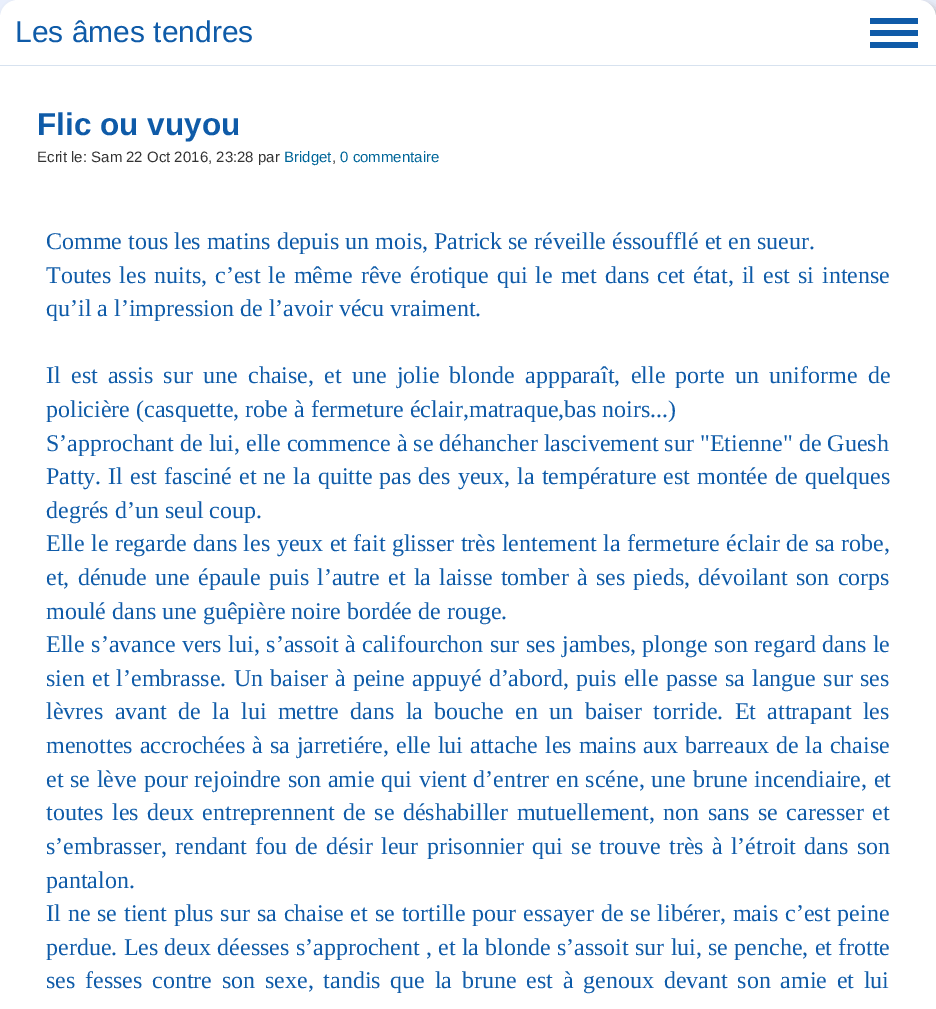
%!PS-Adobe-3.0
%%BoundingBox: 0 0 936 1009
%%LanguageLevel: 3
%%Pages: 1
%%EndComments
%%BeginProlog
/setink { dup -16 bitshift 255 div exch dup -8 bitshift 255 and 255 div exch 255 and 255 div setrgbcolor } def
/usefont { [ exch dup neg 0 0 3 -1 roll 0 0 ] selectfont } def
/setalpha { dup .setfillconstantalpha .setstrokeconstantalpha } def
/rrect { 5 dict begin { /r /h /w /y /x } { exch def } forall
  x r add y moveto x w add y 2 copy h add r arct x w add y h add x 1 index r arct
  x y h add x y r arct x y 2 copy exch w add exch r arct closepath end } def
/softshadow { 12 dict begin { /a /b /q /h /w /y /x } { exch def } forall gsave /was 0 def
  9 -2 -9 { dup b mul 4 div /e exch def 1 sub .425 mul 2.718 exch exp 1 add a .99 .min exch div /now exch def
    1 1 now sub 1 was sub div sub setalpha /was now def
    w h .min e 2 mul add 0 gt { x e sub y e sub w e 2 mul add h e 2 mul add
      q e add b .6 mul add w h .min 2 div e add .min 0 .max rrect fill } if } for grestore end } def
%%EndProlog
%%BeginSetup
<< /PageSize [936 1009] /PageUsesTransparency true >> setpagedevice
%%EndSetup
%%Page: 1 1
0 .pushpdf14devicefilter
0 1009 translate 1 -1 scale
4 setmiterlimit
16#E9EFFC setink
0 0 936 1009 rectfill
16#A9A9A9 setink
5 5 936 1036 18 4.5 1 softshadow
16#FFFFFF setink
18 0 moveto 918 0 lineto 928 0 936 8 936 18 curveto 936 65 lineto 0 65 lineto 0 18 lineto 0 8 8 0 18 0 curveto closepath fill
16#D7E2EF setink
0 65 936 1 rectfill
/LiberationSans-Regular 30 usefont
16#0F5BA8 setink
15 42 moveto (Les âmes tendres) show
[
    [870 18 48 6 16#0F5BA8]
    [870 30 48 6 16#0F5BA8]
    [870 42 48 6 16#0F5BA8]
    [0 66 936 943 16#FFFFFF]
] { aload pop setink rectfill } forall
/LiberationSans-Bold 31.5 usefont
16#0F5BA8 setink
37 135 moveto (Flic ou vuyou) show
/LiberationSans-Regular 15 usefont
16#333333 setink
37 162 moveto (Ecrit le: Sam 22 Oct 2016, 23:28 par) show
16#006699 setink
284 162 moveto (Bridget) show
16#333333 setink
332 162 moveto (,) show
16#006699 setink
340 162 moveto (0 commentaire) show
/LiberationSerif-Regular 24 usefont
16#0F5BA8 setink
46 249 moveto (Comme tous les matins depuis un mois, Patrick se réveille éssoufflé et en sueur.) show
46 283 moveto 2.1 0 32 (Toutes les nuits, c’est le même rêve érotique qui le met dans cet état, il est si intense) widthshow
46 316 moveto (qu’il a l’impression de l’avoir vécu vraiment.) show
46 383 moveto 4.25 0 32 (Il est assis sur une chaise, et une jolie blonde appparaît, elle porte un uniforme de) widthshow
46 417 moveto (policière \(casquette, robe à fermeture éclair,matraque,bas noirs...\)) show
46 451 moveto (S’approchant de lui, elle commence à se déhancher lascivement sur "Etienne" de Guesh) show
46 484 moveto 1.1 0 32 (Patty. Il est fasciné et ne la quitte pas des yeux, la température est montée de quelques) widthshow
46 518 moveto (degrés d’un seul coup.) show
46 551 moveto 0.4 0 32 (Elle le regarde dans les yeux et fait glisser très lentement la fermeture éclair de sa robe,) widthshow
46 585 moveto 2.25 0 32 (et, dénude une épaule puis l’autre et la laisse tomber à ses pieds, dévoilant son corps) widthshow
46 619 moveto (moulé dans une guêpière noire bordée de rouge.) show
46 652 moveto 0.6 0 32 (Elle s’avance vers lui, s’assoit à califourchon sur ses jambes, plonge son regard dans le) widthshow
46 686 moveto 1.25 0 32 (sien et l’embrasse. Un baiser à peine appuyé d’abord, puis elle passe sa langue sur ses) widthshow
46 719 moveto 5.4 0 32 (lèvres avant de la lui mettre dans la bouche en un baiser torride. Et attrapant les) widthshow
46 753 moveto 1 0 32 (menottes accrochées à sa jarretiére, elle lui attache les mains aux barreaux de la chaise) widthshow
46 787 moveto 0.75 0 32 (et se lève pour rejoindre son amie qui vient d’entrer en scéne, une brune incendiaire, et) widthshow
46 820 moveto 2.6 0 32 (toutes les deux entreprennent de se déshabiller mutuellement, non sans se caresser et) widthshow
46 854 moveto 2.25 0 32 (s’embrasser, rendant fou de désir leur prisonnier qui se trouve très à l’étroit dans son) widthshow
46 888 moveto (pantalon.) show
46 921 moveto 0.9 0 32 (Il ne se tient plus sur sa chaise et se tortille pour essayer de se libérer, mais c’est peine) widthshow
46 955 moveto 0.25 0 32 (perdue. Les deux déesses s’approchent , et la blonde s’assoit sur lui, se penche, et frotte) widthshow
46 988 moveto 3.75 0 32 (ses fesses contre son sexe, tandis que la brune est à genoux devant son amie et lui) widthshow
.poppdf14devicefilter showpage
%%EOF
